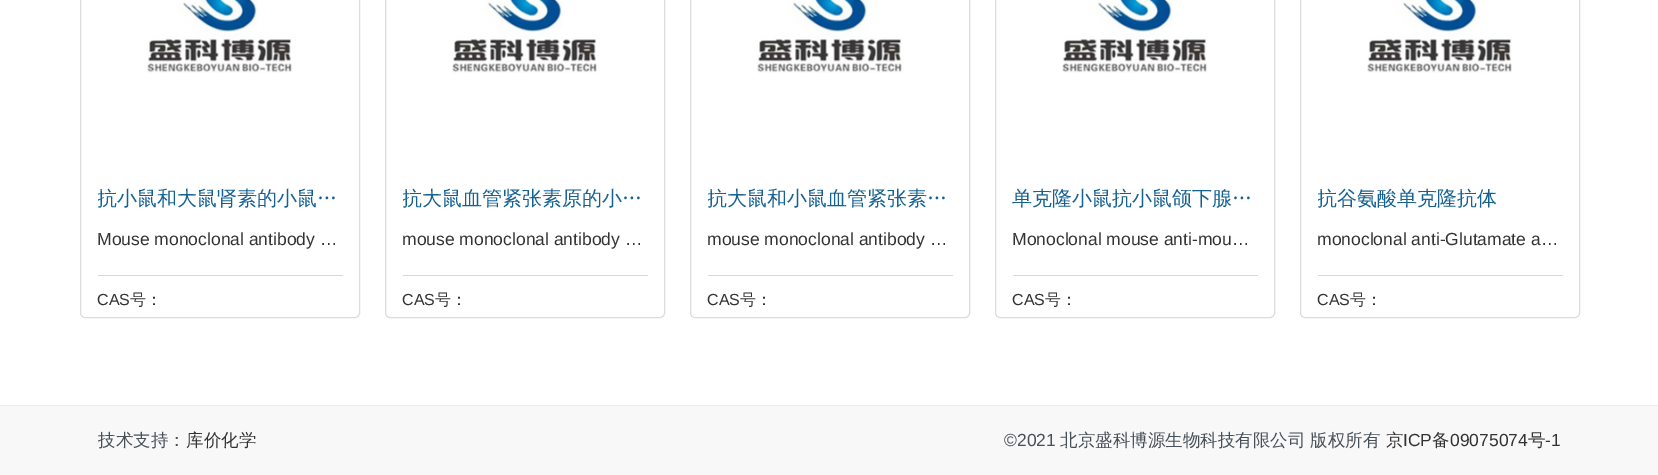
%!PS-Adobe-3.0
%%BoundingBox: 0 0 1658 475
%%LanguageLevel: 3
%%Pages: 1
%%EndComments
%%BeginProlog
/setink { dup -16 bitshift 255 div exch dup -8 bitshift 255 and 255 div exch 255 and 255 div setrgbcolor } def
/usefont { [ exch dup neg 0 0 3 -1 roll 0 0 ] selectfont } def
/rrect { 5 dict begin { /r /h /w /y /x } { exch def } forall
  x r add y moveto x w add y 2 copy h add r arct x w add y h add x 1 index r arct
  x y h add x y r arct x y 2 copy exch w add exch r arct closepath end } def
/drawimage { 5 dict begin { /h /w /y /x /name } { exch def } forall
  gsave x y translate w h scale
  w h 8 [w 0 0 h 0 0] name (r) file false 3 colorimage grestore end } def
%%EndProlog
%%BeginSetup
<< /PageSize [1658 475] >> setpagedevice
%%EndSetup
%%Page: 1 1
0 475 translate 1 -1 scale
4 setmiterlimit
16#FFFFFF setink
0 0 1658 475 rectfill
16#DDDDDD setink
80.5 -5.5 279 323 4.5 rrect stroke
(img1.raw) 147 0 145 73 drawimage
gsave
98 173 245 41 rectclip
/WenQuanYiZenHei-Medium 20 usefont
16#156192 setink
97 205 moveto (抗小鼠和大鼠肾素的小鼠…) show
grestore
16#D7D7D7 setink
98 275 245 1 rectfill
/LiberationSans-Regular 17.5 usefont
16#333333 setink
97 245 moveto (Mouse monoclonal antibody …) show
/LiberationSans-Regular 16 usefont
97 305 moveto (CAS) show
/WenQuanYiZenHei-Medium 16 usefont
130 305 moveto (号：) show
16#DDDDDD setink
385.5 -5.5 279 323 4.5 rrect stroke
(img1.raw) 452 0 145 73 drawimage
gsave
403 173 245 41 rectclip
/WenQuanYiZenHei-Medium 20 usefont
16#156192 setink
402 205 moveto (抗大鼠血管紧张素原的小…) show
grestore
16#D7D7D7 setink
403 275 245 1 rectfill
/LiberationSans-Regular 17.5 usefont
16#333333 setink
402 245 moveto (mouse monoclonal antibody …) show
/LiberationSans-Regular 16 usefont
402 305 moveto (CAS) show
/WenQuanYiZenHei-Medium 16 usefont
435 305 moveto (号：) show
16#DDDDDD setink
690.5 -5.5 279 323 4.5 rrect stroke
(img1.raw) 757 0 145 73 drawimage
gsave
708 173 245 41 rectclip
/WenQuanYiZenHei-Medium 20 usefont
16#156192 setink
707 205 moveto (抗大鼠和小鼠血管紧张素…) show
grestore
16#D7D7D7 setink
708 275 245 1 rectfill
/LiberationSans-Regular 17.5 usefont
16#333333 setink
707 245 moveto (mouse monoclonal antibody …) show
/LiberationSans-Regular 16 usefont
707 305 moveto (CAS) show
/WenQuanYiZenHei-Medium 16 usefont
740 305 moveto (号：) show
16#DDDDDD setink
995.5 -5.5 279 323 4.5 rrect stroke
(img1.raw) 1062 0 145 73 drawimage
/WenQuanYiZenHei-Medium 20 usefont
16#156192 setink
1012 205 moveto (单克隆小鼠抗小鼠颌下腺…) show
16#D7D7D7 setink
1013 275 245 1 rectfill
/LiberationSans-Regular 17.5 usefont
16#333333 setink
1012 245 moveto (Monoclonal mouse anti-mou…) show
/LiberationSans-Regular 16 usefont
1012 305 moveto (CAS) show
/WenQuanYiZenHei-Medium 16 usefont
1045 305 moveto (号：) show
16#DDDDDD setink
1300.5 -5.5 279 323 4.5 rrect stroke
(img2.raw) 1367 0 145 73 drawimage
gsave
1318 173 245 41 rectclip
/WenQuanYiZenHei-Medium 20 usefont
16#156192 setink
1317 205 moveto (抗谷氨酸单克隆抗体) show
grestore
16#D7D7D7 setink
1318 275 245 1 rectfill
/LiberationSans-Regular 17.5 usefont
16#333333 setink
1317 245 moveto (monoclonal anti-Glutamate a…) show
/LiberationSans-Regular 16 usefont
1317 305 moveto (CAS) show
/WenQuanYiZenHei-Medium 16 usefont
1350 305 moveto (号：) show
16#F8F8F8 setink
0 406 1658 69 rectfill
16#EBEBEB setink
0 405 1658 1 rectfill
/WenQuanYiZenHei-Medium 17.5 usefont
16#475058 setink
98 446 moveto (技术支持：) show
16#333333 setink
186 446 moveto (库价化学) show
/LiberationSans-Regular 17.5 usefont
16#475058 setink
1004 446 moveto (©2021) show
/WenQuanYiZenHei-Medium 17.5 usefont
1060 446 moveto (北京盛科博源生物科技有限公司 版权所有) show
16#333333 setink
1386 446 moveto (京) show
/LiberationSans-Regular 17.5 usefont
1403 446 moveto (ICP) show
/WenQuanYiZenHei-Medium 17.5 usefont
1432 446 moveto (备) show
/LiberationSans-Regular 17.5 usefont
1450 446 moveto (09075074) show
/WenQuanYiZenHei-Medium 17.5 usefont
1528 446 moveto (号) show
/LiberationSans-Regular 17.5 usefont
1545 446 moveto (-1) show
showpage
%%EOF
